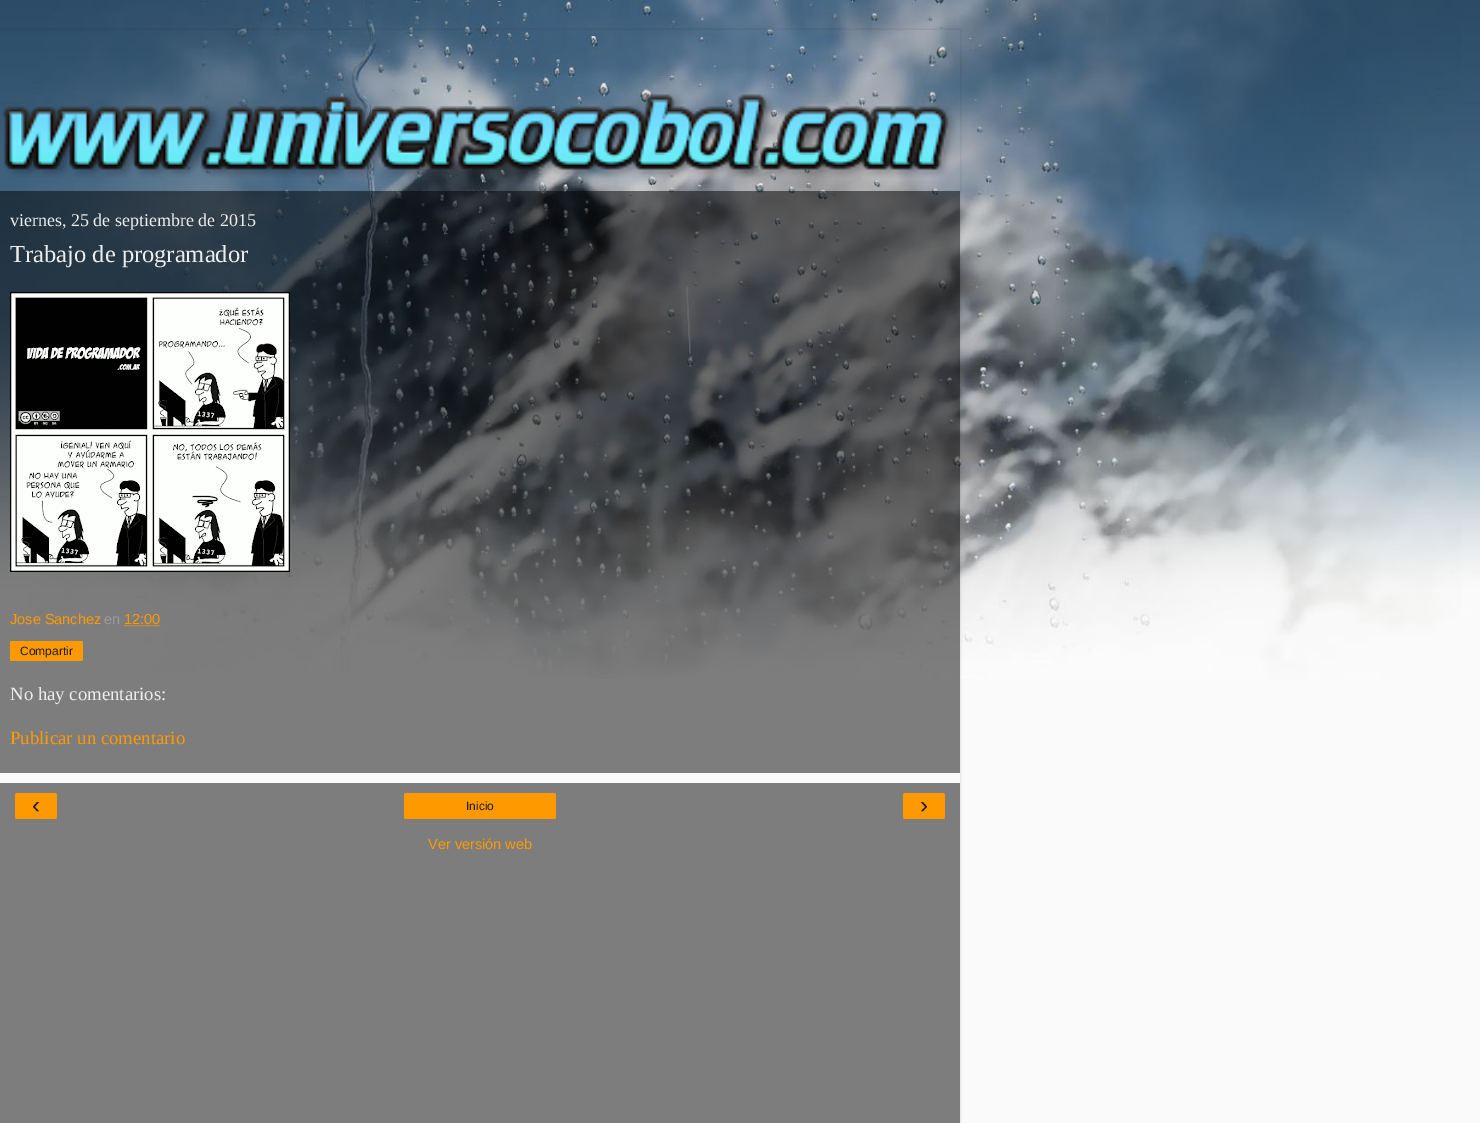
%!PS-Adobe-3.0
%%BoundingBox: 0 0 1480 1123
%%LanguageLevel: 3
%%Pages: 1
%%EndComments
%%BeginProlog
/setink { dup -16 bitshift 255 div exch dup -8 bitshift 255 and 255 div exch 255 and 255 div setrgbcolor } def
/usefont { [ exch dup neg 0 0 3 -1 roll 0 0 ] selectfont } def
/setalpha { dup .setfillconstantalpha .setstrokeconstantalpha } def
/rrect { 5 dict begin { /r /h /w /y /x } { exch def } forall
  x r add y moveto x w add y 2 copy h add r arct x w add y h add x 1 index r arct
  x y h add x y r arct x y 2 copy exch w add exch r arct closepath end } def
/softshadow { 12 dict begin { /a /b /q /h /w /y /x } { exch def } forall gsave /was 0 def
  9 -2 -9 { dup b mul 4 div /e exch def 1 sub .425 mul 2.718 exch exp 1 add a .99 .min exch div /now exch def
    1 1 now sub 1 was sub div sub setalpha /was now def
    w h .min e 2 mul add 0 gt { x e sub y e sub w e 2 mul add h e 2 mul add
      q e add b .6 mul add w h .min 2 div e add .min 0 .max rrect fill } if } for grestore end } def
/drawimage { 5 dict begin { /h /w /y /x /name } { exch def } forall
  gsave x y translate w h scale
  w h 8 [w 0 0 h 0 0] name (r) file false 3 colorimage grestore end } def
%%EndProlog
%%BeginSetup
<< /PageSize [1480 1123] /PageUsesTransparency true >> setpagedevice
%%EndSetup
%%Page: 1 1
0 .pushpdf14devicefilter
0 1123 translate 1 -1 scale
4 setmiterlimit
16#FAFAFA setink
0 0 1480 1123 rectfill
(img1.raw) 0 0 1480 679 drawimage
gsave
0 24 moveto 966 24 lineto 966 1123 lineto 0 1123 lineto closepath 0 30 moveto 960 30 lineto 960 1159 lineto 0 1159 lineto closepath eoclip newpath
16#000000 setink
0 30 960 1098 0 1.5 0.15 softshadow
grestore
(img2.raw) 2 94 954 84 drawimage
0.5 setalpha
16#000000 setink
0 191 960 582 rectfill
/LiberationSerif-Regular 18 usefont
1 setalpha
16#EEEEEE setink
10 226 moveto (viernes, 25 de septiembre de 2015) show
/LiberationSerif-Regular 24.5 usefont
10 262 moveto (Trabajo de programador) show
(img3.raw) 10 292 280 280 drawimage
/LiberationSans-Regular 14.5 usefont
16#FF9900 setink
10 624 moveto (Jose Sanchez) show
16#999999 setink
104 624 moveto (en) show
16#FF9900 setink
124 624 moveto (12:00) show
[1 1] 0 setdash
124.5 625.5 moveto 160.5 625.5 lineto stroke
10 641 73 20 2 rrect fill
/LiberationSans-Regular 12 usefont
16#1C1C1C setink
20 655 moveto (Compartir) show
/LiberationSerif-Regular 18.75 usefont
16#EEEEEE setink
10 700 moveto (No hay comentarios:) show
16#FF9900 setink
10 744 moveto (Publicar un comentario) show
16#7D7D7D setink
0 783 960 340 rectfill
16#FF9900 setink
15 793 42 26 2 rrect fill
/LiberationSans-Regular 24 usefont
16#1C1C1C setink
32 813 moveto (‹) show
16#FF9900 setink
404 793 152 26 2 rrect fill
/LiberationSans-Regular 12 usefont
16#1C1C1C setink
466 810 moveto (Inicio) show
16#FF9900 setink
903 793 42 26 2 rrect fill
/LiberationSans-Regular 24 usefont
16#1C1C1C setink
920 813 moveto (›) show
/LiberationSans-Regular 14.5 usefont
16#FF9900 setink
428 849 moveto (Ver versión web) show
.poppdf14devicefilter showpage
%%EOF
